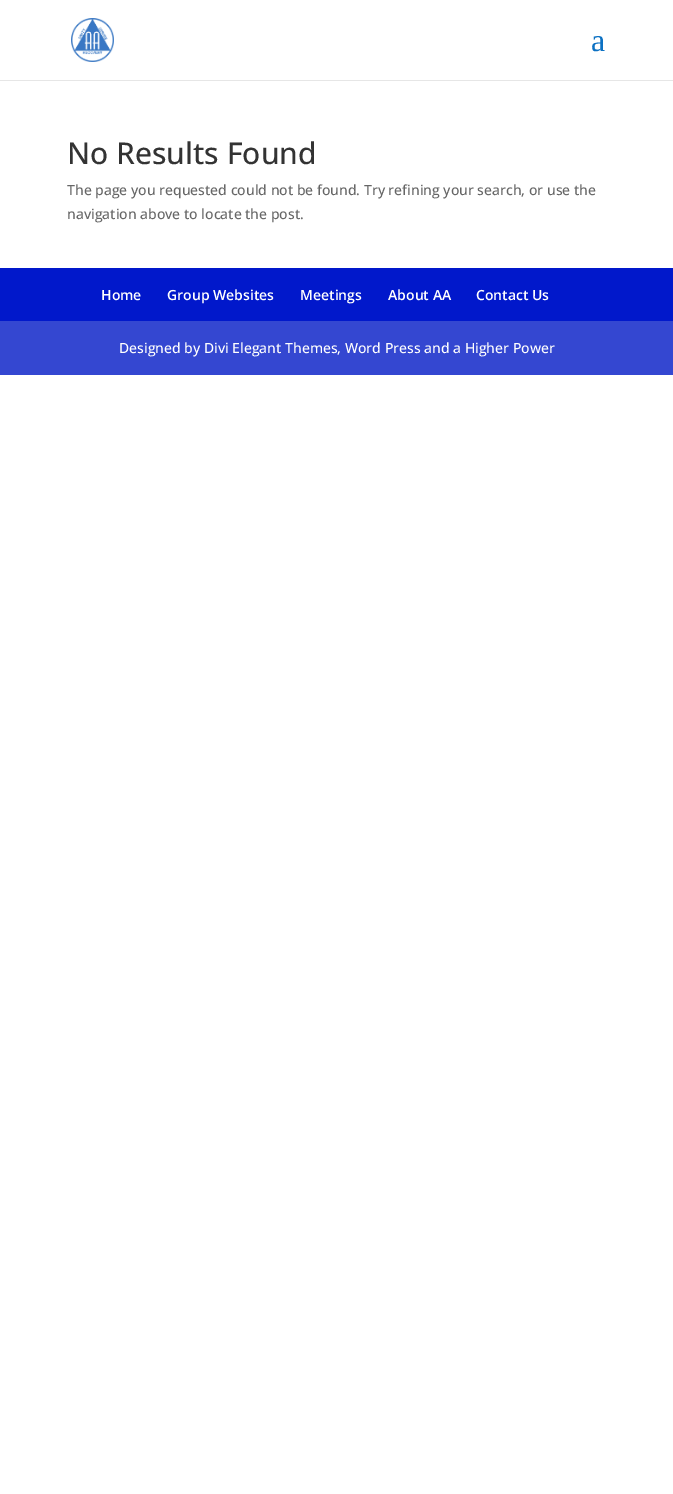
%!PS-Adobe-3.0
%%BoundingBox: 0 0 673 1494
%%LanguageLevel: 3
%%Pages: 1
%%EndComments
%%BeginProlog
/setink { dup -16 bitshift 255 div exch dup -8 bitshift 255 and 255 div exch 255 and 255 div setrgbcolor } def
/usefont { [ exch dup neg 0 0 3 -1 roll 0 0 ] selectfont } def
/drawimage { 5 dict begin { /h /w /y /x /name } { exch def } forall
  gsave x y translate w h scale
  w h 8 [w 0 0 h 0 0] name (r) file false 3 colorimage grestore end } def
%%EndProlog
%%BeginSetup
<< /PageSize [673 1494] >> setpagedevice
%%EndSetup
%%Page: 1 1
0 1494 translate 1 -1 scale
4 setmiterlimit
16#FFFFFF setink
0 0 673 1494 rectfill
16#E6E6E6 setink
0 80 673 1 rectfill
(img1.raw) 71 18 43 44 drawimage
/LiberationSerif-Regular 32 usefont
16#0C71C3 setink
591 51 moveto (a) show
/OpenSans-Medium 30 usefont
16#333333 setink
67 164 moveto (No Results Found) show
/OpenSans-Medium 14 usefont
16#666666 setink
67 195 moveto (The page you requested could not be found. Try refining your search, or use the) show
67 219 moveto (navigation above to locate the post.) show
16#0118CB setink
0 268 673 53 rectfill
/OpenSans-SemiBold 14 usefont
16#FFFFFF setink
[
    [(Home) 101 300]
    [(Group Websites) 167 300]
    [(Meetings) 300 300]
    [(About AA) 388 300]
    [(Contact Us) 476 300]
] { aload pop moveto show } forall
16#3447D1 setink
0 321 673 54 rectfill
/OpenSans-Medium 14 usefont
16#FFFFFF setink
119 353 moveto (Designed by Divi Elegant Themes, Word Press and a Higher Power) show
showpage
%%EOF
